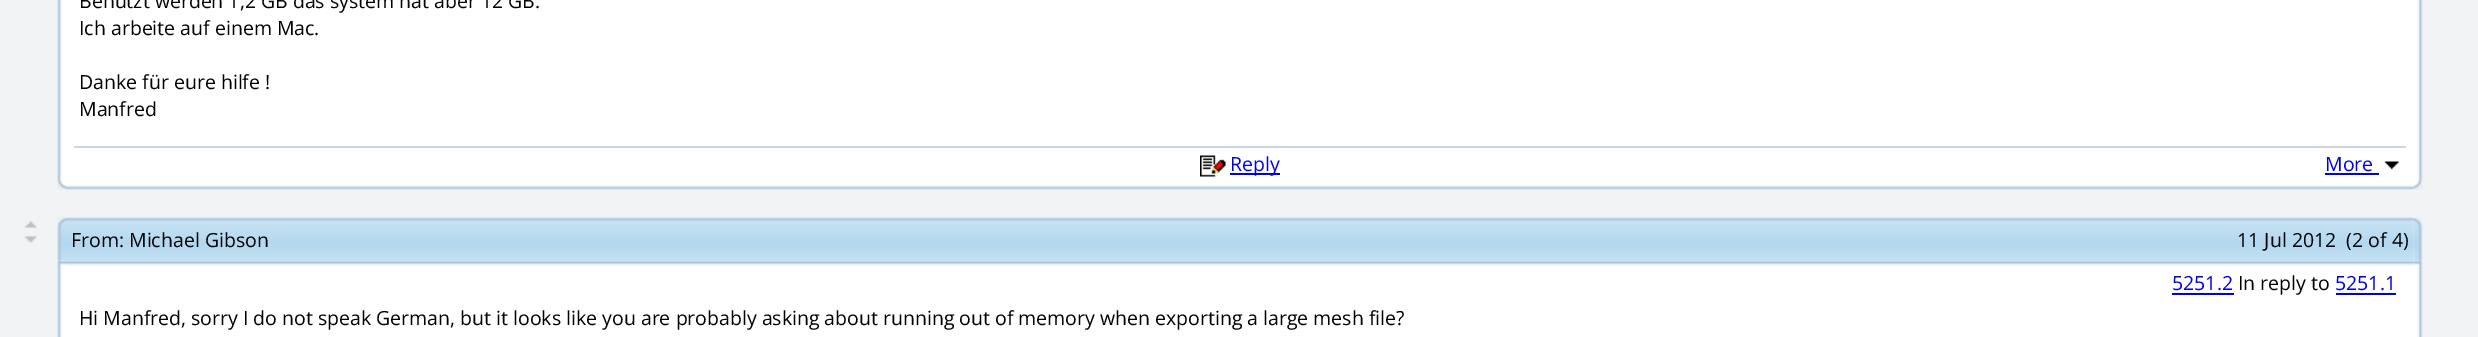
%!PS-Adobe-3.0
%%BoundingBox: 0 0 2478 337
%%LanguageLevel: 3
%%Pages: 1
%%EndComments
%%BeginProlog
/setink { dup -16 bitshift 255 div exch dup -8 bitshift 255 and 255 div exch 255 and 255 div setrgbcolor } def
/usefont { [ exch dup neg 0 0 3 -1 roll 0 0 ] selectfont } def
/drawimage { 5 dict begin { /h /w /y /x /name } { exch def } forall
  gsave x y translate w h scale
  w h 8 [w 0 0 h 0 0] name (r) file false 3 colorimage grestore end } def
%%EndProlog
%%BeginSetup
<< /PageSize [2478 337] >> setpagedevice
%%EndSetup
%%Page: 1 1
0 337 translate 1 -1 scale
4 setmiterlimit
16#F1F3F5 setink
0 0 2478 337 rectfill
(img1.raw) 57 0 9 181 drawimage
16#FFFFFF setink
66 0 2348 182 rectfill
/OpenSans-Regular 19.5 usefont
16#000000 setink
[
    [(Benutzt werden 1,2 GB das system hat aber 12 GB.) 79 8]
    [(Ich arbeite auf einem Mac.) 79 35]
    [(Danke für eure hilfe !) 79 89]
    [(Manfred) 79 116]
] { aload pop moveto show } forall
16#C8D7E6 setink
74 146 2332 2 rectfill
(img2.raw) 1200 155 26 22 drawimage
16#0000EE setink
1230 173 50 2 rectfill
1230 171 moveto (Reply) show
2325 171 moveto (More) show
2325 173 54 2 rectfill
(img3.raw) 2384 161 15 9 drawimage
(img4.raw) 2414 0 9 181 drawimage
(img5.raw) 57 181 9 9 drawimage
(img6.raw) 66 182 2348 8 drawimage
(img7.raw) 2413 181 10 9 drawimage
(img8.raw) 24 220 13 9 drawimage
(img9.raw) 24 235 13 9 drawimage
(img10.raw) 57 217 9 9 drawimage
(img11.raw) 66 217 2348 9 drawimage
(img12.raw) 2413 217 10 9 drawimage
(img16.raw) 57 260 9 5 drawimage
(img13.raw) 57 226 9 35 drawimage
(img14.raw) 66 226 2348 35 drawimage
16#000000 setink
71 247 moveto (From: Michael Gibson) show
2237 247 moveto (11 Jul 2012  \(2 of 4\)) show
(img17.raw) 66 260 2348 5 drawimage
(img18.raw) 2413 260 10 5 drawimage
(img15.raw) 2413 226 10 35 drawimage
(img19.raw) 57 265 9 72 drawimage
16#FFFFFF setink
66 266 2348 71 rectfill
16#0000EE setink
2172 290 moveto (5251.2) show
2172 293 62 2 rectfill
16#000000 setink
2238 290 moveto (In reply to) show
16#0000EE setink
2335 290 moveto (5251.1) show
2336 293 60 2 rectfill
16#000000 setink
79 325 moveto (Hi Manfred, sorry I do not speak German, but it looks like you are probably asking about running out of memory when exporting a large mesh file?) show
(img20.raw) 2413 265 10 72 drawimage
showpage
%%EOF
